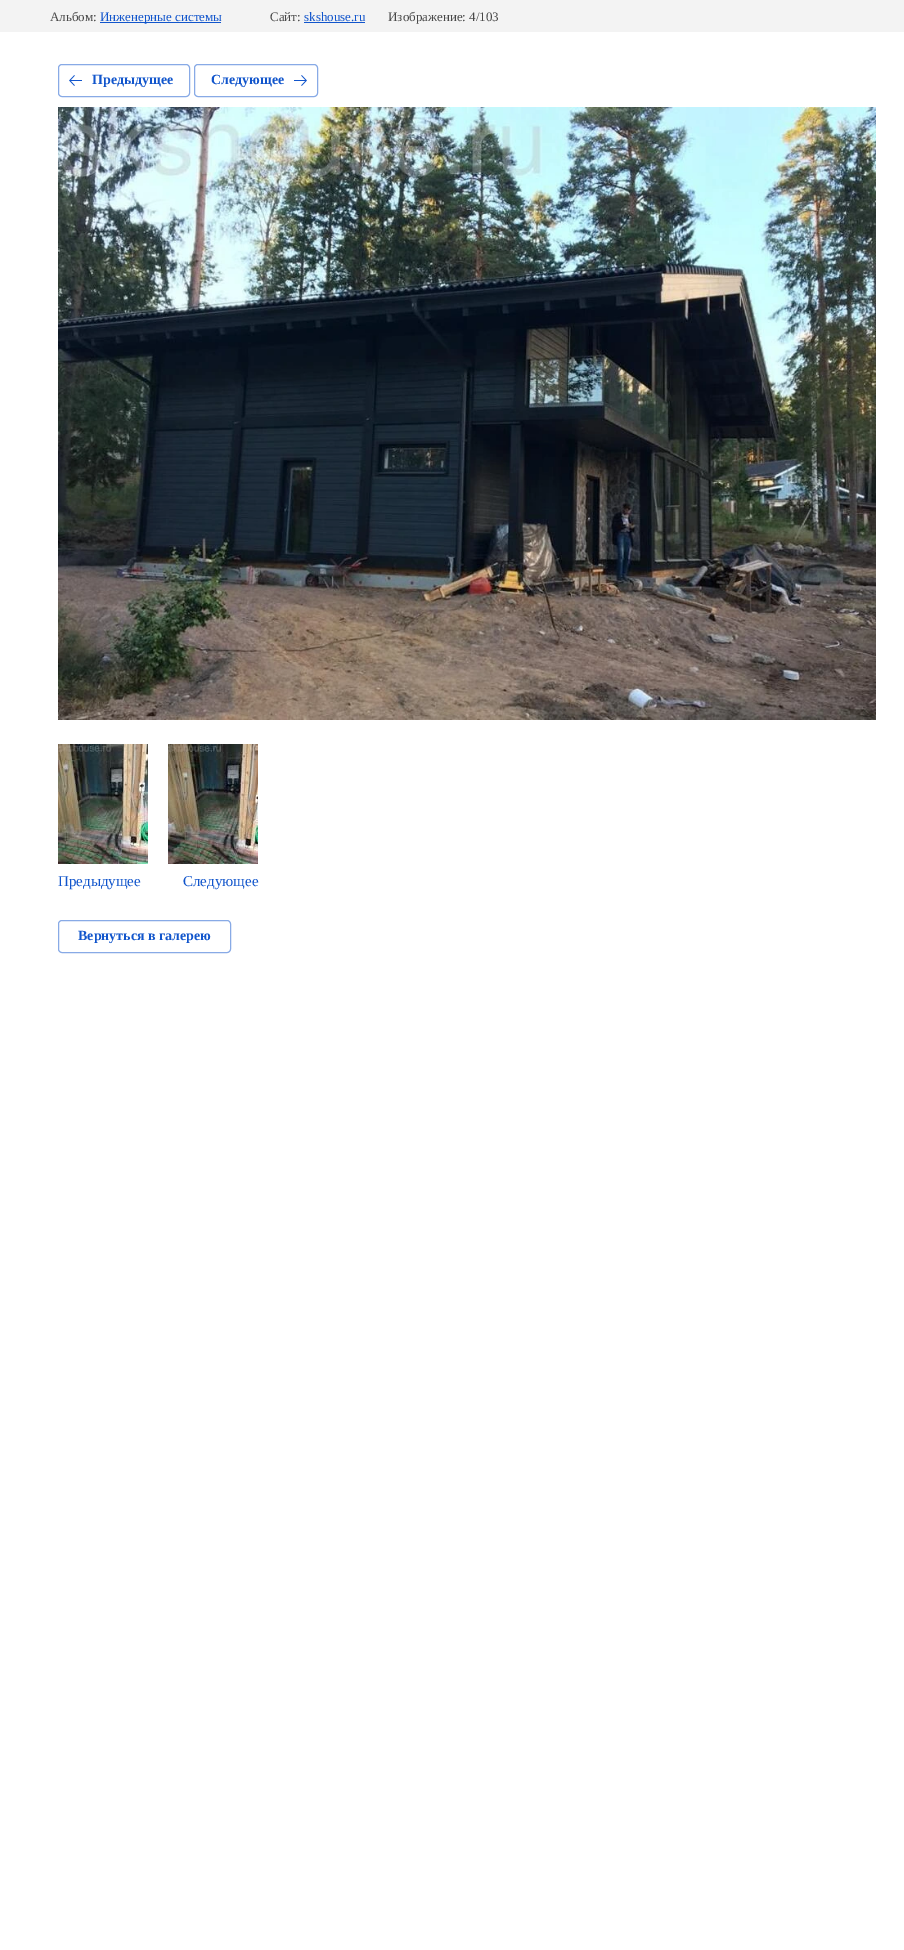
%!PS-Adobe-3.0
%%BoundingBox: 0 0 904 1950
%%LanguageLevel: 3
%%Pages: 1
%%EndComments
%%BeginProlog
/setink { dup -16 bitshift 255 div exch dup -8 bitshift 255 and 255 div exch 255 and 255 div setrgbcolor } def
/usefont { [ exch dup neg 0 0 3 -1 roll 0 0 ] selectfont } def
/rrect { 5 dict begin { /r /h /w /y /x } { exch def } forall
  x r add y moveto x w add y 2 copy h add r arct x w add y h add x 1 index r arct
  x y h add x y r arct x y 2 copy exch w add exch r arct closepath end } def
/drawimage { 5 dict begin { /h /w /y /x /name } { exch def } forall
  gsave x y translate w h scale
  w h 8 [w 0 0 h 0 0] name (r) file false 3 colorimage grestore end } def
%%EndProlog
%%BeginSetup
<< /PageSize [904 1950] >> setpagedevice
%%EndSetup
%%Page: 1 1
0 1950 translate 1 -1 scale
4 setmiterlimit
16#FFFFFF setink
0 0 904 1950 rectfill
16#F3F3F3 setink
0 0 904 32 rectfill
/LiberationSerif-Regular 13 usefont
16#484848 setink
50 21 moveto (Альбом:) show
16#1155CC setink
100 22 121 1 rectfill
100 21 moveto (Инженерные системы) show
16#484848 setink
270 21 moveto (Сайт:) show
16#1155CC setink
304 21 moveto (skshouse.ru) show
304 22 61 1 rectfill
16#484848 setink
388 21 moveto (Изображение: 4/103) show
16#88AAE6 setink
58.5 64.5 131 32 3.5 rrect stroke
(img1.raw) 69 75 13 11 drawimage
/LiberationSerif-Bold 14 usefont
16#1155CC setink
92 84 moveto (Предыдущее) show
16#88AAE6 setink
194.5 64.5 123 32 3.5 rrect stroke
16#1155CC setink
211 84 moveto (Следующее) show
(img2.raw) 294 75 13 11 drawimage
(img3.raw) 58 107 818 613 drawimage
(img4.raw) 58 744 90 120 drawimage
/LiberationSerif-Regular 15 usefont
58 886 moveto (Предыдущее) show
(img5.raw) 168 744 90 120 drawimage
183 886 moveto (Следующее) show
16#88AAE6 setink
58.5 920.5 172 32 3.5 rrect stroke
/LiberationSerif-Bold 14 usefont
16#1155CC setink
78 940 moveto (Вернуться в галерею) show
showpage
%%EOF
